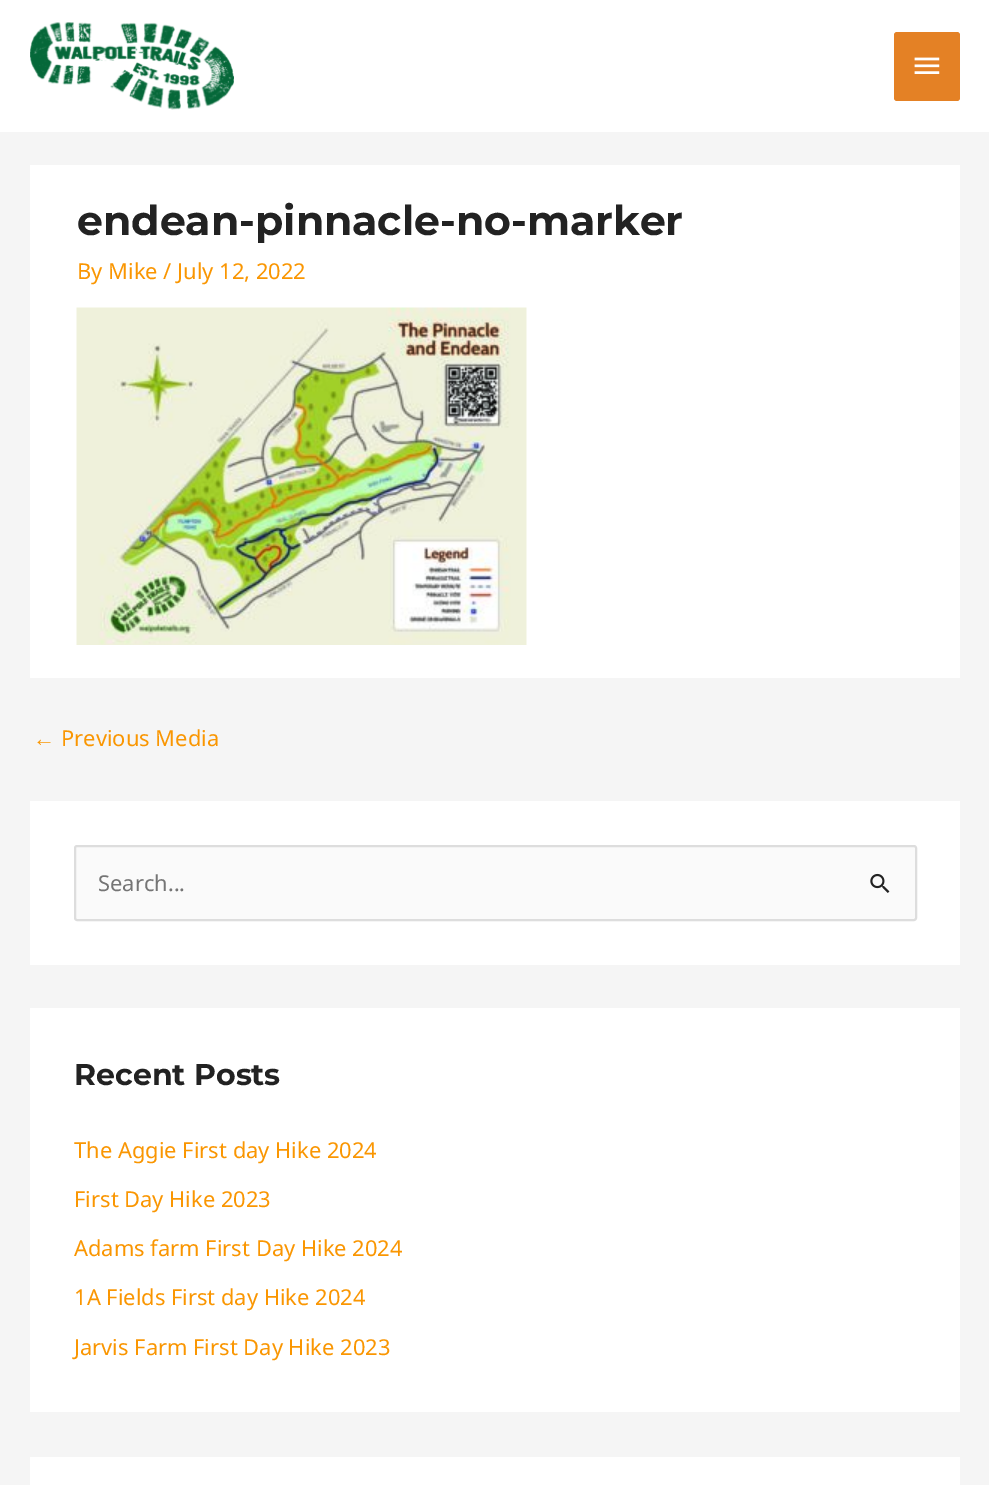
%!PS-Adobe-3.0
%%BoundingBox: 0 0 989 1485
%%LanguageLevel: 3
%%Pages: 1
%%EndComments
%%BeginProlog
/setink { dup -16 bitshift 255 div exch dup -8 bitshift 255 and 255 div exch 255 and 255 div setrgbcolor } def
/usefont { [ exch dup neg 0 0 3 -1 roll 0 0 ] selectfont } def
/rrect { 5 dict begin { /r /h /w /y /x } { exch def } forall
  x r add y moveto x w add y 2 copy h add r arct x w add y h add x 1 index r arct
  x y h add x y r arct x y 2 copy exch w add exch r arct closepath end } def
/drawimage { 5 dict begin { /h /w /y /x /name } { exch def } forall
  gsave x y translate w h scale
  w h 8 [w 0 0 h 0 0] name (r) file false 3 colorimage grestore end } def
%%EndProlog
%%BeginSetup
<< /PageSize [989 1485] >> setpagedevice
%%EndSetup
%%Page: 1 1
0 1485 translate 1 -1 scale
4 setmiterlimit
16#F5F5F5 setink
0 0 989 1485 rectfill
16#FFFFFF setink
0 0 989 132 rectfill
(img1.raw) 30 22 204 88 drawimage
16#E48125 setink
894 32 66 69 3 rrect fill
(img2.raw) 914 57 26 17 drawimage
16#FFFFFF setink
30 165 930 513 rectfill
/Montserrat-Thin 41 usefont
16#222222 setink
77 235 moveto (endean-pinnacle-no-marker) show
/NotoSans-Regular 21.9 usefont
16#FA9601 setink
77 279 moveto (By Mike / July 12, 2022) show
(img3.raw) 76 307 451 338 drawimage
/LiberationSans-Regular 21.9 usefont
33 746 moveto (←) show
/NotoSans-Regular 21.9 usefont
61 746 moveto (Previous Media) show
16#FFFFFF setink
30 801 930 164 rectfill
16#FAFAFA setink
75 846 841 74 2 rrect gsave fill grestore
16#DDDDDD setink
2 setlinewidth
stroke
16#757575 setink
98 891 moveto (Search...) show
(img4.raw) 870 873 20 20 drawimage
16#FFFFFF setink
30 1008 930 404 rectfill
/Montserrat-Thin 30 usefont
16#222222 setink
74 1085 moveto (Recent Posts) show
/NotoSans-Regular 21.9 usefont
16#FA9601 setink
[
    [(The Aggie First day Hike 2024) 74 1158]
    [(First Day Hike 2023) 74 1207]
    [(Adams farm First Day Hike 2024) 74 1256]
    [(1A Fields First day Hike 2024) 74 1305]
    [(Jarvis Farm First Day Hike 2023) 74 1355]
] { aload pop moveto show } forall
16#FFFFFF setink
30 1457 930 28 rectfill
showpage
%%EOF
